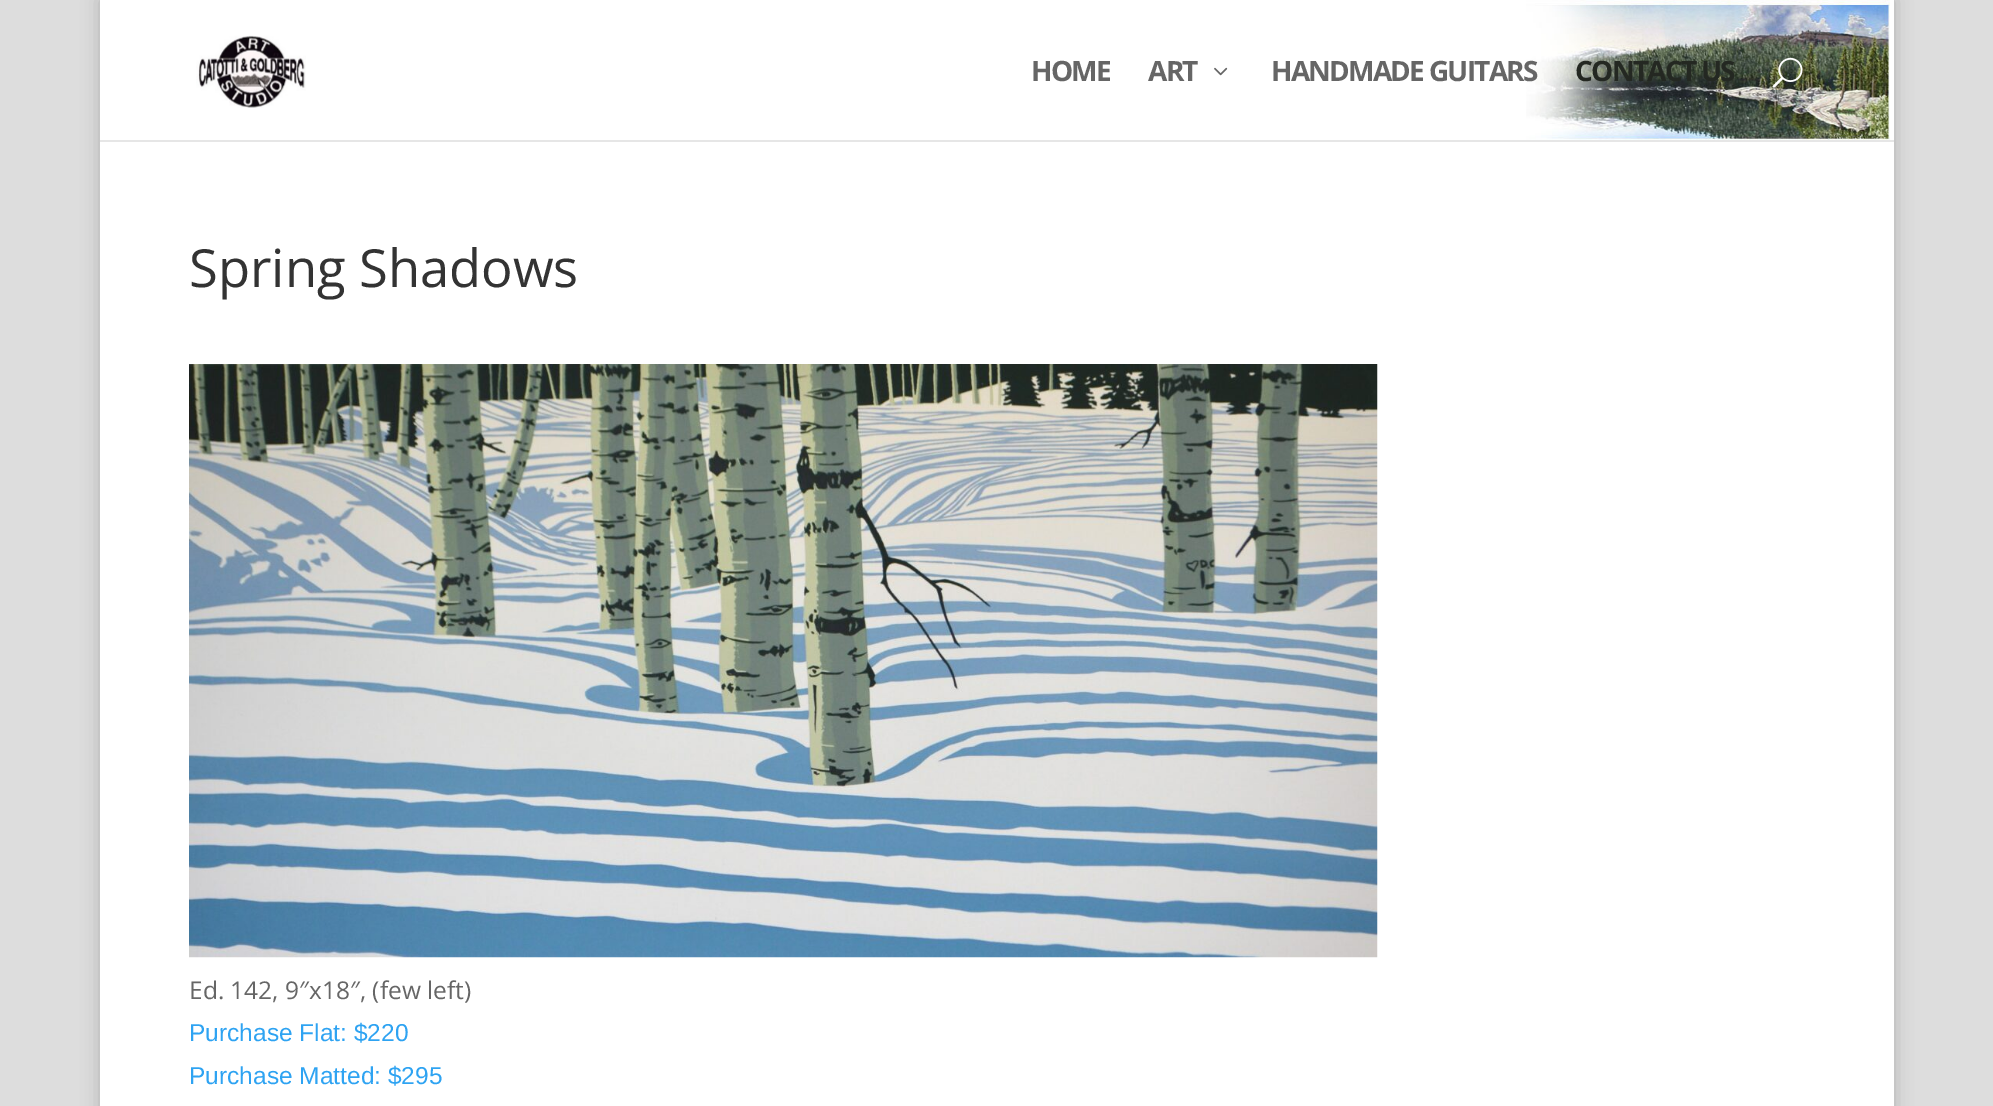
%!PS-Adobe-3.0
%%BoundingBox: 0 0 1993 1106
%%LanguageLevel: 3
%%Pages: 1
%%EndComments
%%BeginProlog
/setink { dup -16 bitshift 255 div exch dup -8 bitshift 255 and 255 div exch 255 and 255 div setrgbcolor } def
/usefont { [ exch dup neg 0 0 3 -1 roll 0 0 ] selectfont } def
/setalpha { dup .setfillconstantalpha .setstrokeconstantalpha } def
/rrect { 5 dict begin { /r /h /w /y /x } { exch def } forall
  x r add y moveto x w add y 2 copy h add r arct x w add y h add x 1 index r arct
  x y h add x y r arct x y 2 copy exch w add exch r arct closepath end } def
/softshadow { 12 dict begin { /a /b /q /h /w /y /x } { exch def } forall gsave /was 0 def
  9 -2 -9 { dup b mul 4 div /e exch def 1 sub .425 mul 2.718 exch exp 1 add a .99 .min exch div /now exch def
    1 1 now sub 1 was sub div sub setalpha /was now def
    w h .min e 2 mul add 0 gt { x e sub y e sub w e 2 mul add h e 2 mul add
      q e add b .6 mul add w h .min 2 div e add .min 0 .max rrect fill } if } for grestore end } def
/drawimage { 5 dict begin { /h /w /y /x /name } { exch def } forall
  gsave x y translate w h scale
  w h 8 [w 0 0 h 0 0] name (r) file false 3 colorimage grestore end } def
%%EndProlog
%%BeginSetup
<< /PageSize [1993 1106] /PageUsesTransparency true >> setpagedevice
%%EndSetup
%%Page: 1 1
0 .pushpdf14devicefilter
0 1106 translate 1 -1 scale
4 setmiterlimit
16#DDDDDD setink
0 0 1993 1106 rectfill
16#000000 setink
100 0 1794 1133 0 9 0.2 softshadow
16#E6E6E6 setink
100 140 moveto 100 142 lineto 1894 142 lineto 1894 2 lineto 1894 140 lineto closepath fill
16#FFFFFF setink
100 0 1794 140 rectfill
(img1.raw) 1526 0 364 140 drawimage
(img2.raw) 196 35 110 73 drawimage
/OpenSans-Bold 28 usefont
16#666666 setink
1031 81 moveto -1.75 0 (HOME) ashow
1148 81 moveto -1.75 0 (ART) ashow
(img3.raw) 1214 67 14 9 drawimage
1271 81 moveto -1.75 0 (HANDMADE GUITARS) ashow
16#242822 setink
1575 81 moveto -1.75 0 (CONTACT US) ashow
(img4.raw) 1772 57 31 31 drawimage
16#FFFFFF setink
100 142 1794 964 rectfill
/OpenSans-Regular 52.5 usefont
16#333333 setink
189 287 moveto (Spring Shadows) show
(img5.raw) 189 364 1189 594 drawimage
/OpenSans-Regular 24.5 usefont
16#666666 setink
189 999 moveto (Ed. 142, 9″x18″, \(few left\)) show
/LiberationSans-Regular 24.5 usefont
16#2EA3F2 setink
189 1041 moveto (Purchase Flat: $220) show
189 1084 moveto (Purchase Matted: $295) show
.poppdf14devicefilter showpage
%%EOF
